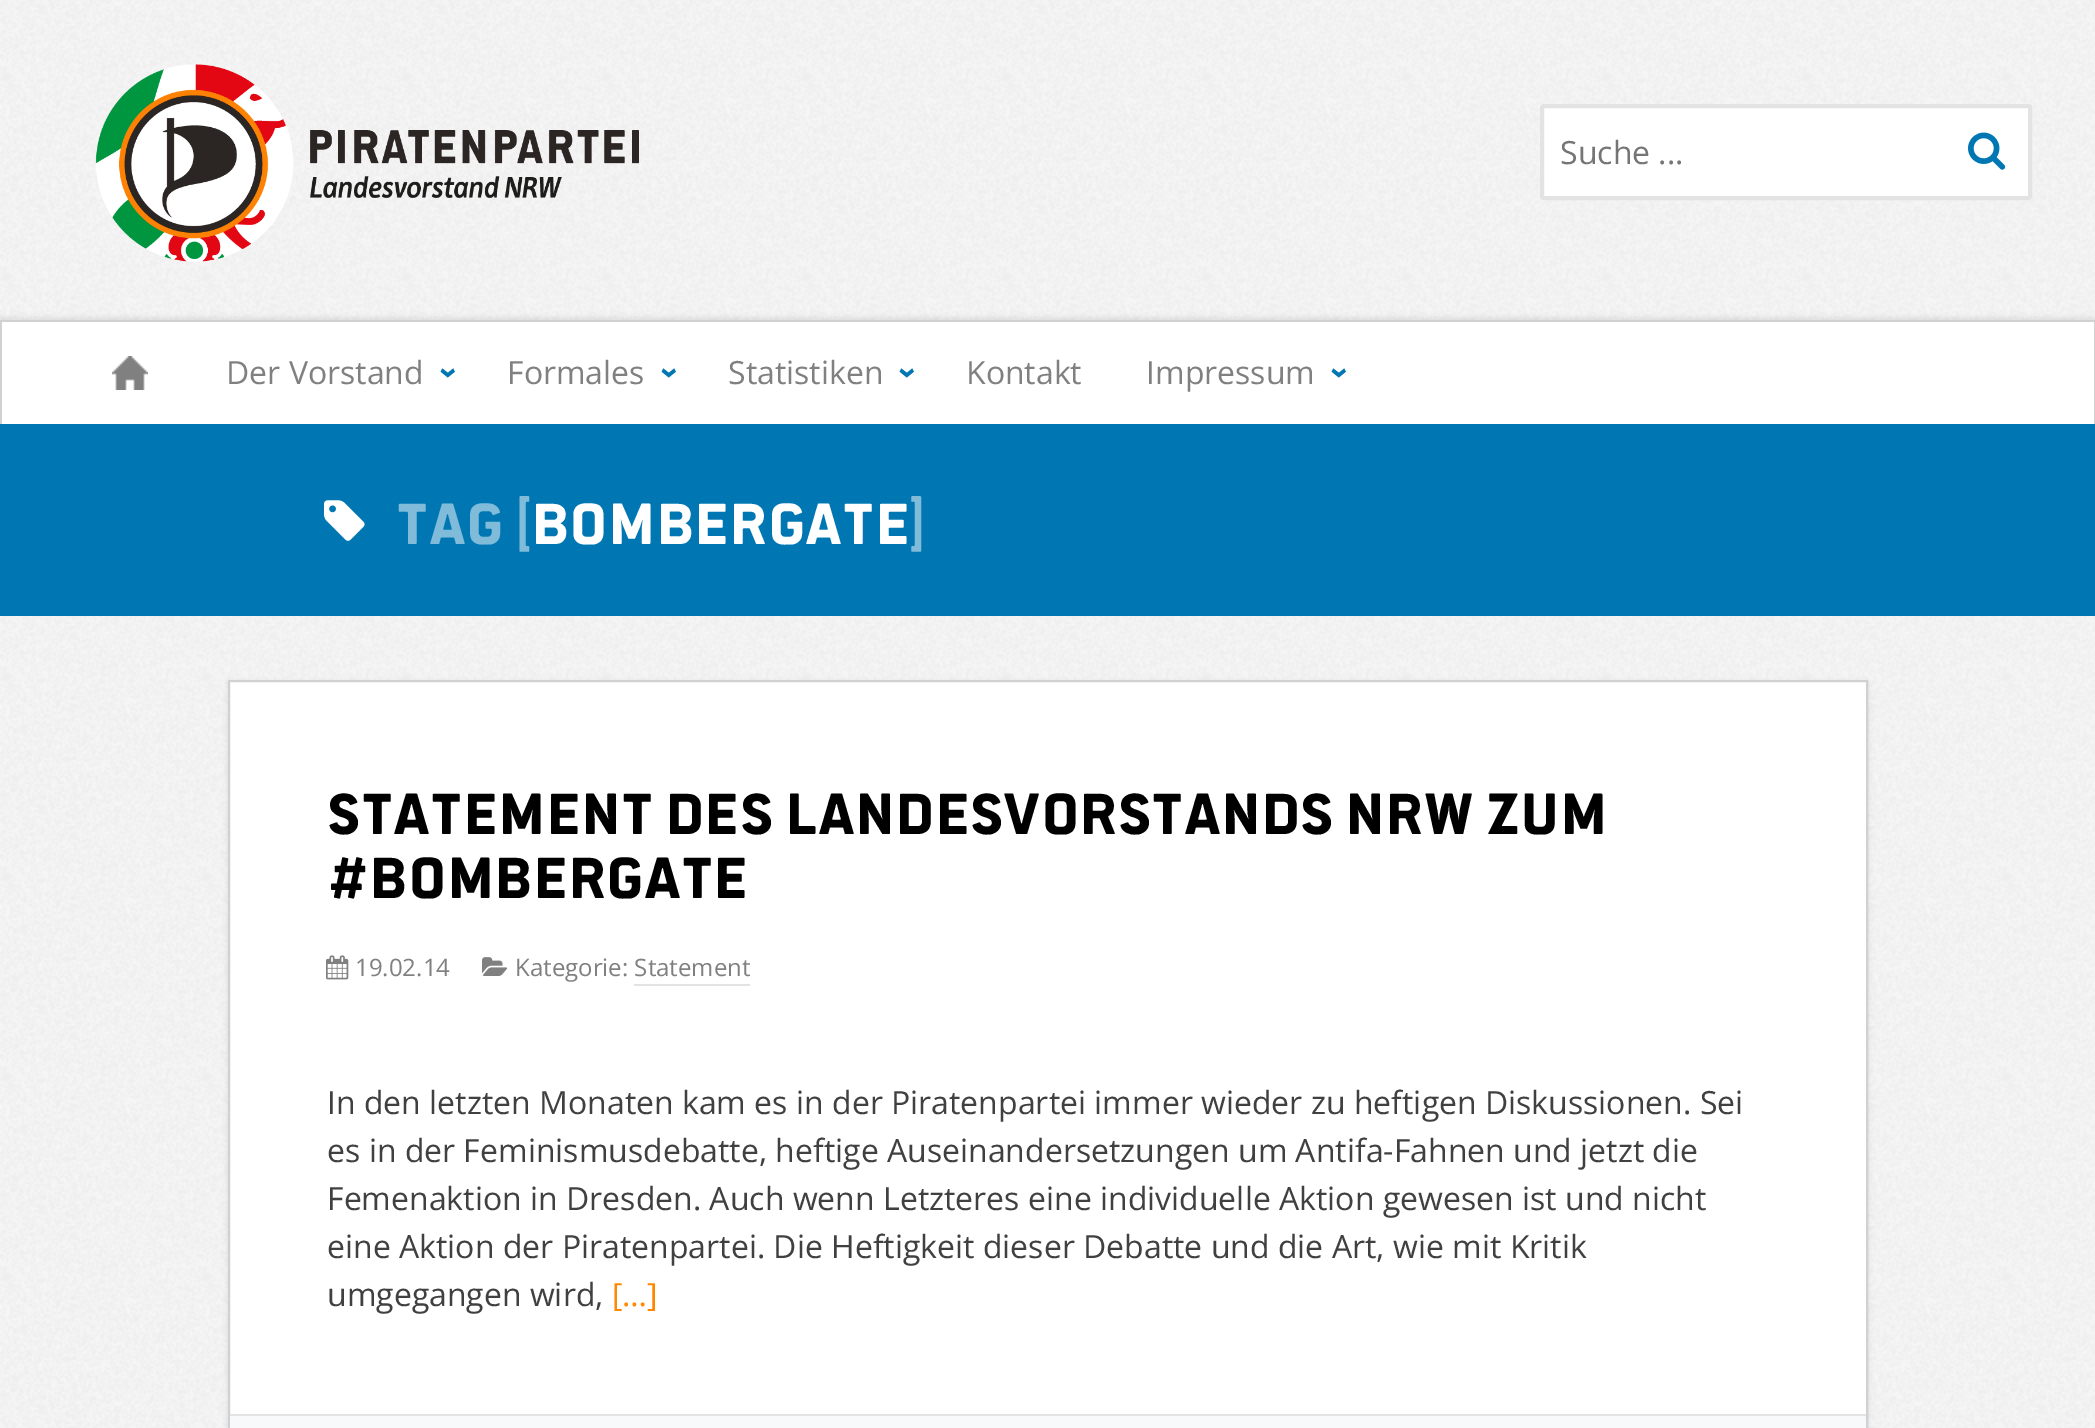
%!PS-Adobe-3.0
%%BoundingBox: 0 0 2095 1428
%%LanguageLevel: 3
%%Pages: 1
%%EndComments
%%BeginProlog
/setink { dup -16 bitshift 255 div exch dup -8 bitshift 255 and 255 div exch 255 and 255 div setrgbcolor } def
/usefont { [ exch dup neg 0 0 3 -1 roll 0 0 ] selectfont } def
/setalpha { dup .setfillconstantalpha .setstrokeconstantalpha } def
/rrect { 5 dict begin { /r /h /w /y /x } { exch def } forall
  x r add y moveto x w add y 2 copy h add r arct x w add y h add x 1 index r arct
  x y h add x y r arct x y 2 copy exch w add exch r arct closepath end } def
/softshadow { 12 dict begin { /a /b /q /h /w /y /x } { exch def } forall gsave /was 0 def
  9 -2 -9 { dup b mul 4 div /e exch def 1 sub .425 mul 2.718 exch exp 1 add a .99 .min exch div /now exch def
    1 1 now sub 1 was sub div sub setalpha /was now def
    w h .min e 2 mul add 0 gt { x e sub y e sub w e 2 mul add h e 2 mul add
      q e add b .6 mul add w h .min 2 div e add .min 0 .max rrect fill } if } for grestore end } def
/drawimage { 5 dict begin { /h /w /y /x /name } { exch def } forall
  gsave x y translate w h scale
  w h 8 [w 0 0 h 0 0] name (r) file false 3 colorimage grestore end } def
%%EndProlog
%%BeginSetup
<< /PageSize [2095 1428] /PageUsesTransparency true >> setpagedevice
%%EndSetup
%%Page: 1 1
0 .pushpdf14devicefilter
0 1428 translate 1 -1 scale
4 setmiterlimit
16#FFFFFF setink
0 0 2095 1428 rectfill
(img1.raw) 0 0 2095 1428 drawimage
(img2.raw) 95 64 544 198 drawimage
1542 106 488 92 2 rrect gsave fill grestore
16#E3E3E3 setink
4 setlinewidth
stroke
/OpenSans-Regular 32 usefont
16#757575 setink
1560 164 moveto (Suche ...) show
(img3.raw) 1968 132 38 38 drawimage
16#000000 setink
0 318 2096 104 0 3 0.1 softshadow
[
    [2 322 2092 102 16#FFFFFF]
    [0 320 2095 2 16#D1D1D1]
    [2094 320 1 104 16#D1D1D1]
    [0 320 2 104 16#D1D1D1]
] { aload pop setink rectfill } forall
(img4.raw) 112 356 36 34 drawimage
16#808080 setink
226 384 moveto (Der Vorstand) show
/OpenSans-Bold 32 usefont
16#0077B3 setink
gsave 439 367 translate 90 rotate 0 0 moveto (›) show grestore
/OpenSans-Regular 32 usefont
16#808080 setink
507 384 moveto (Formales) show
/OpenSans-Bold 32 usefont
16#0077B3 setink
gsave 660 367 translate 90 rotate 0 0 moveto (›) show grestore
/OpenSans-Regular 32 usefont
16#808080 setink
728 384 moveto (Statistiken) show
/OpenSans-Bold 32 usefont
16#0077B3 setink
gsave 898 367 translate 90 rotate 0 0 moveto (›) show grestore
/OpenSans-Regular 32 usefont
16#808080 setink
966 384 moveto (Kontakt) show
1146 384 moveto (Impressum) show
/OpenSans-Bold 32 usefont
16#0077B3 setink
gsave 1330 367 translate 90 rotate 0 0 moveto (›) show grestore
0 424 2095 192 rectfill
(img5.raw) 324 500 41 41 drawimage
/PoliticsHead-Bold 64 usefont
16#80BBD9 setink
396 544 moveto (Tag [) show
16#FFFFFF setink
531 544 moveto (Bombergate) show
16#80BBD9 setink
910 544 moveto (]) show
16#000000 setink
228 682 1640 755 0 3 0.1 softshadow
16#FFFFFF setink
230 682 1636 732 rectfill
16#D1D1D1 setink
2 setlinewidth
229 681 1638 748 rectstroke
16#000000 setink
327 834 moveto (Statement des Landesvorstands NRW zum) show
327 898 moveto (#Bombergate) show
(img6.raw) 326 955 23 25 drawimage
/OpenSans-Regular 24 usefont
16#808080 setink
355 976 moveto (19.02.14) show
(img7.raw) 482 957 26 19 drawimage
515 976 moveto (Kategorie: Statement) show
16#E3E3E3 setink
634 984 116 2 rectfill
/OpenSans-Regular 32 usefont
16#404040 setink
[
    [(In den letzten Monaten kam es in der Piratenpartei immer wieder zu heftigen Diskussionen. Sei) 327 1114]
    [(es in der Feminismusdebatte, heftige Auseinandersetzungen um Antifa-Fahnen und jetzt die) 327 1162]
    [(Femenaktion in Dresden. Auch wenn Letzteres eine individuelle Aktion gewesen ist und nicht) 327 1210]
    [(eine Aktion der Piratenpartei. Die Heftigkeit dieser Debatte und die Art, wie mit Kritik) 327 1258]
    [(umgegangen wird,) 327 1306]
] { aload pop moveto show } forall
16#FF8800 setink
612 1306 moveto ([…]) show
16#F7F9FA setink
230 1416 1636 12 rectfill
16#E3E3E3 setink
230 1414 1636 2 rectfill
.poppdf14devicefilter showpage
%%EOF
